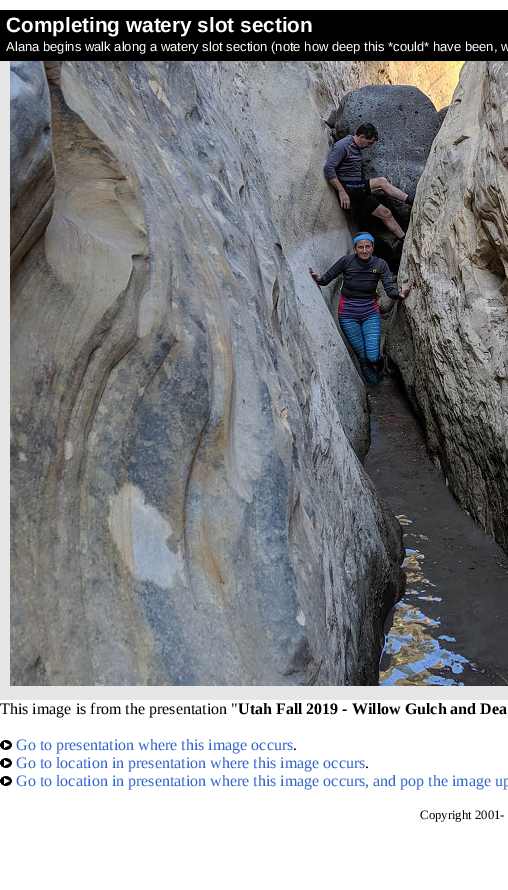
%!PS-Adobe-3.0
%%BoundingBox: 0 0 508 890
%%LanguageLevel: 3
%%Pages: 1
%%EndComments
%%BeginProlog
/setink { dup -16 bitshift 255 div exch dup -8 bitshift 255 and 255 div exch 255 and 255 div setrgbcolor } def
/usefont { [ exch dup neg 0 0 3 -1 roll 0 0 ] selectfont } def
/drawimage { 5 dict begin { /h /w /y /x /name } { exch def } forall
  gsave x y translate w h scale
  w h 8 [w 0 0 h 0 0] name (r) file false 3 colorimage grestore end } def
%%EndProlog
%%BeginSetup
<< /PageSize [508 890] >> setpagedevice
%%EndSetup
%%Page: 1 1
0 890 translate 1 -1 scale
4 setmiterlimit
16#FFFFFF setink
0 0 508 890 rectfill
16#000000 setink
0 10 508 51 rectfill
/LiberationSans-Bold 20.75 usefont
16#FFFFFF setink
6 32 moveto (Completing watery slot section) show
/LiberationSans-Regular 13 usefont
6 51 moveto (Alana begins walk along a watery slot section \(note how deep this *could* have been, w) show
16#E6E6E6 setink
0 61 508 639 rectfill
(img1.raw) 10 61 498 625 drawimage
/LiberationSerif-Regular 16 usefont
16#000000 setink
0 714 moveto (This image is from the presentation ") show
/LiberationSerif-Bold 16 usefont
238 714 moveto (Utah Fall 2019 - Willow Gulch and Dea) show
(img2.raw) 0 740 12 10 drawimage
/LiberationSerif-Regular 16 usefont
16#3366CC setink
16 750 moveto (Go to presentation where this image occurs) show
16#000000 setink
293 750 moveto (.) show
(img2.raw) 0 758 12 10 drawimage
16#3366CC setink
16 768 moveto (Go to location in presentation where this image occurs) show
16#000000 setink
365 768 moveto (.) show
(img2.raw) 0 776 12 10 drawimage
16#3366CC setink
16 786 moveto (Go to location in presentation where this image occurs, and pop the image up) show
/LiberationSerif-Regular 12.75 usefont
16#000000 setink
420 819 moveto (Copyright 2001-) show
showpage
%%EOF
